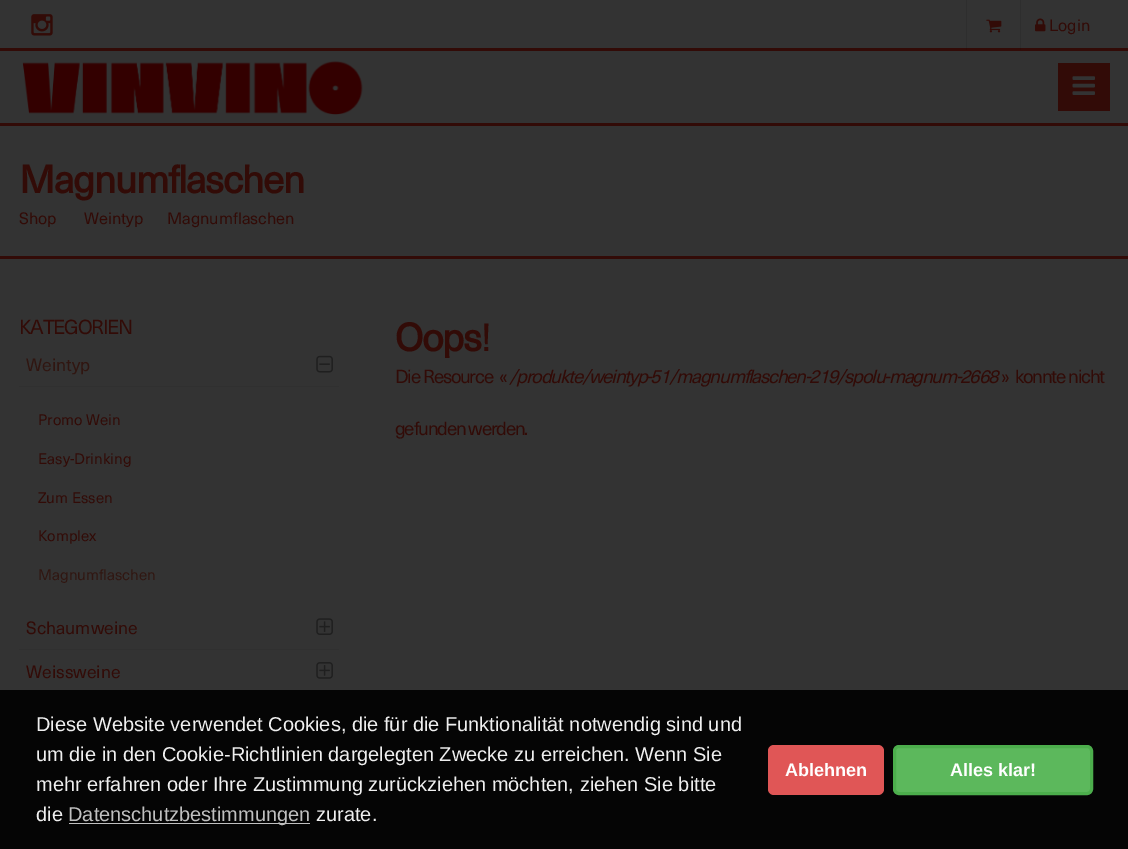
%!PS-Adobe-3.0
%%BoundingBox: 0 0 1128 849
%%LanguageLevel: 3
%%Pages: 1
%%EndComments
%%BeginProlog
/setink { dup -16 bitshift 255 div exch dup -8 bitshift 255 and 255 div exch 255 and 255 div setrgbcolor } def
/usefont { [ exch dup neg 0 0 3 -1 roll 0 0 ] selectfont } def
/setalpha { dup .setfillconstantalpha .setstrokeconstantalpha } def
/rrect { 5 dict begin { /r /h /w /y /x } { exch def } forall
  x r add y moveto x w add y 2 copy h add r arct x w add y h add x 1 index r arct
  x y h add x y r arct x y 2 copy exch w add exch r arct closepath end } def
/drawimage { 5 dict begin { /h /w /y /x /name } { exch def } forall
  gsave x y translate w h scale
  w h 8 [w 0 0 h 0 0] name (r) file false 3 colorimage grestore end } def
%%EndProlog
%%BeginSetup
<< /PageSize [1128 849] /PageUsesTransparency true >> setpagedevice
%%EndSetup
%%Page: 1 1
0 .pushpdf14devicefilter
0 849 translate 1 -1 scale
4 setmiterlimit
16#333333 setink
0 0 1128 849 rectfill
16#320B07 setink
0 48 1128 3 rectfill
(img1.raw) 31 14 22 22 drawimage
0.1 setalpha
16#000000 setink
966 0 1 50 rectfill
1 setalpha
(img2.raw) 986 19 16 14 drawimage
0.1 setalpha
1020 0 1 50 rectfill
1 setalpha
(img3.raw) 1035 18 11 14 drawimage
/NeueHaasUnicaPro-Regular 16.25 usefont
16#320B07 setink
1049 31 moveto (Login) show
0 123 1128 3 rectfill
(img4.raw) 22 61 341 54 drawimage
1058 63 52 48 rectfill
(img5.raw) 1072 76 23 19 drawimage
0 256 1128 3 rectfill
/NeueHaasUnicaPro-Bold 38.5 usefont
19 193 moveto -1.25 0 (Magnumflaschen) ashow
/NeueHaasUnicaPro-Regular 16.25 usefont
[
    [(Shop) 19 224]
    [(Weintyp) 84 224]
    [(Magnumflaschen) 167 224]
] { aload pop moveto show } forall
/NeueHaasUnicaPro-Regular 20 usefont
19 334 moveto -1.25 0 (KATEGORIEN) ashow
16#303030 setink
19 386 320 1 rectfill
/NeueHaasUnicaPro-Regular 17.5 usefont
16#301611 setink
26 371 moveto (Weintyp) show
(img6.raw) 316 355 17 18 drawimage
/NeueHaasUnicaPro-Regular 15 usefont
16#320B07 setink
[
    [(Promo Wein) 38 425]
    [(Easy-Drinking) 38 464]
    [(Zum Essen) 38 503]
    [(Komplex) 38 541]
] { aload pop moveto show } forall
16#301611 setink
38 580 moveto (Magnumflaschen) show
16#303030 setink
19 649 320 1 rectfill
/NeueHaasUnicaPro-Regular 17.5 usefont
16#320B07 setink
26 634 moveto (Schaumweine) show
(img7.raw) 316 618 17 17 drawimage
26 678 moveto (Weissweine) show
(img8.raw) 316 662 17 17 drawimage
/NeueHaasUnicaPro-Bold 38.5 usefont
395 351 moveto -1.25 0 (Oops) ashow
/NeueHaasUnicaPro-Regular 38.5 usefont
481 351 moveto -1.25 0 (!) ashow
/NeueHaasUnicaPro-Regular 18.75 usefont
395 383 moveto -1.25 0 (Die Resource  «) ashow
/NeueHaasUnicaPro-Italic 18.75 usefont
509 383 moveto -1.25 0 (/produkte/weintyp-51/magnumflaschen-219/spolu-magnum-2668) ashow
/NeueHaasUnicaPro-Regular 18.75 usefont
1001 383 moveto -1.25 0 (»  konnte nicht) ashow
395 435 moveto -1.25 0 (gefunden werden.) ashow
16#050505 setink
0 690 1128 159 rectfill
/LiberationSans-Regular 20 usefont
16#EFEFEF setink
[
    [(Diese Website verwendet Cookies, die für die Funktionalität notwendig sind und) 36 731]
    [(um die in den Cookie-Richtlinien dargelegten Zwecke zu erreichen. Wenn Sie) 36 761]
    [(mehr erfahren oder Ihre Zustimmung zurückziehen möchten, ziehen Sie bitte) 36 791]
    [(die) 36 821]
] { aload pop moveto show } forall
16#C0C0C0 setink
69 823 241 1 rectfill
68 821 moveto (Datenschutzbestimmungen) show
16#EFEFEF setink
316 821 moveto (zurate.) show
16#E05656 setink
768 745 116 50 6 rrect fill
/LiberationSans-Bold 18 usefont
16#FFFFFF setink
785 776 moveto (Ablehnen) show
16#5CB85C setink
894.5 746.5 197 47 4.5 rrect gsave fill grestore
16#4CAE4C setink
3 setlinewidth
stroke
16#FFFFFF setink
950 776 moveto (Alles klar!) show
.poppdf14devicefilter showpage
%%EOF
